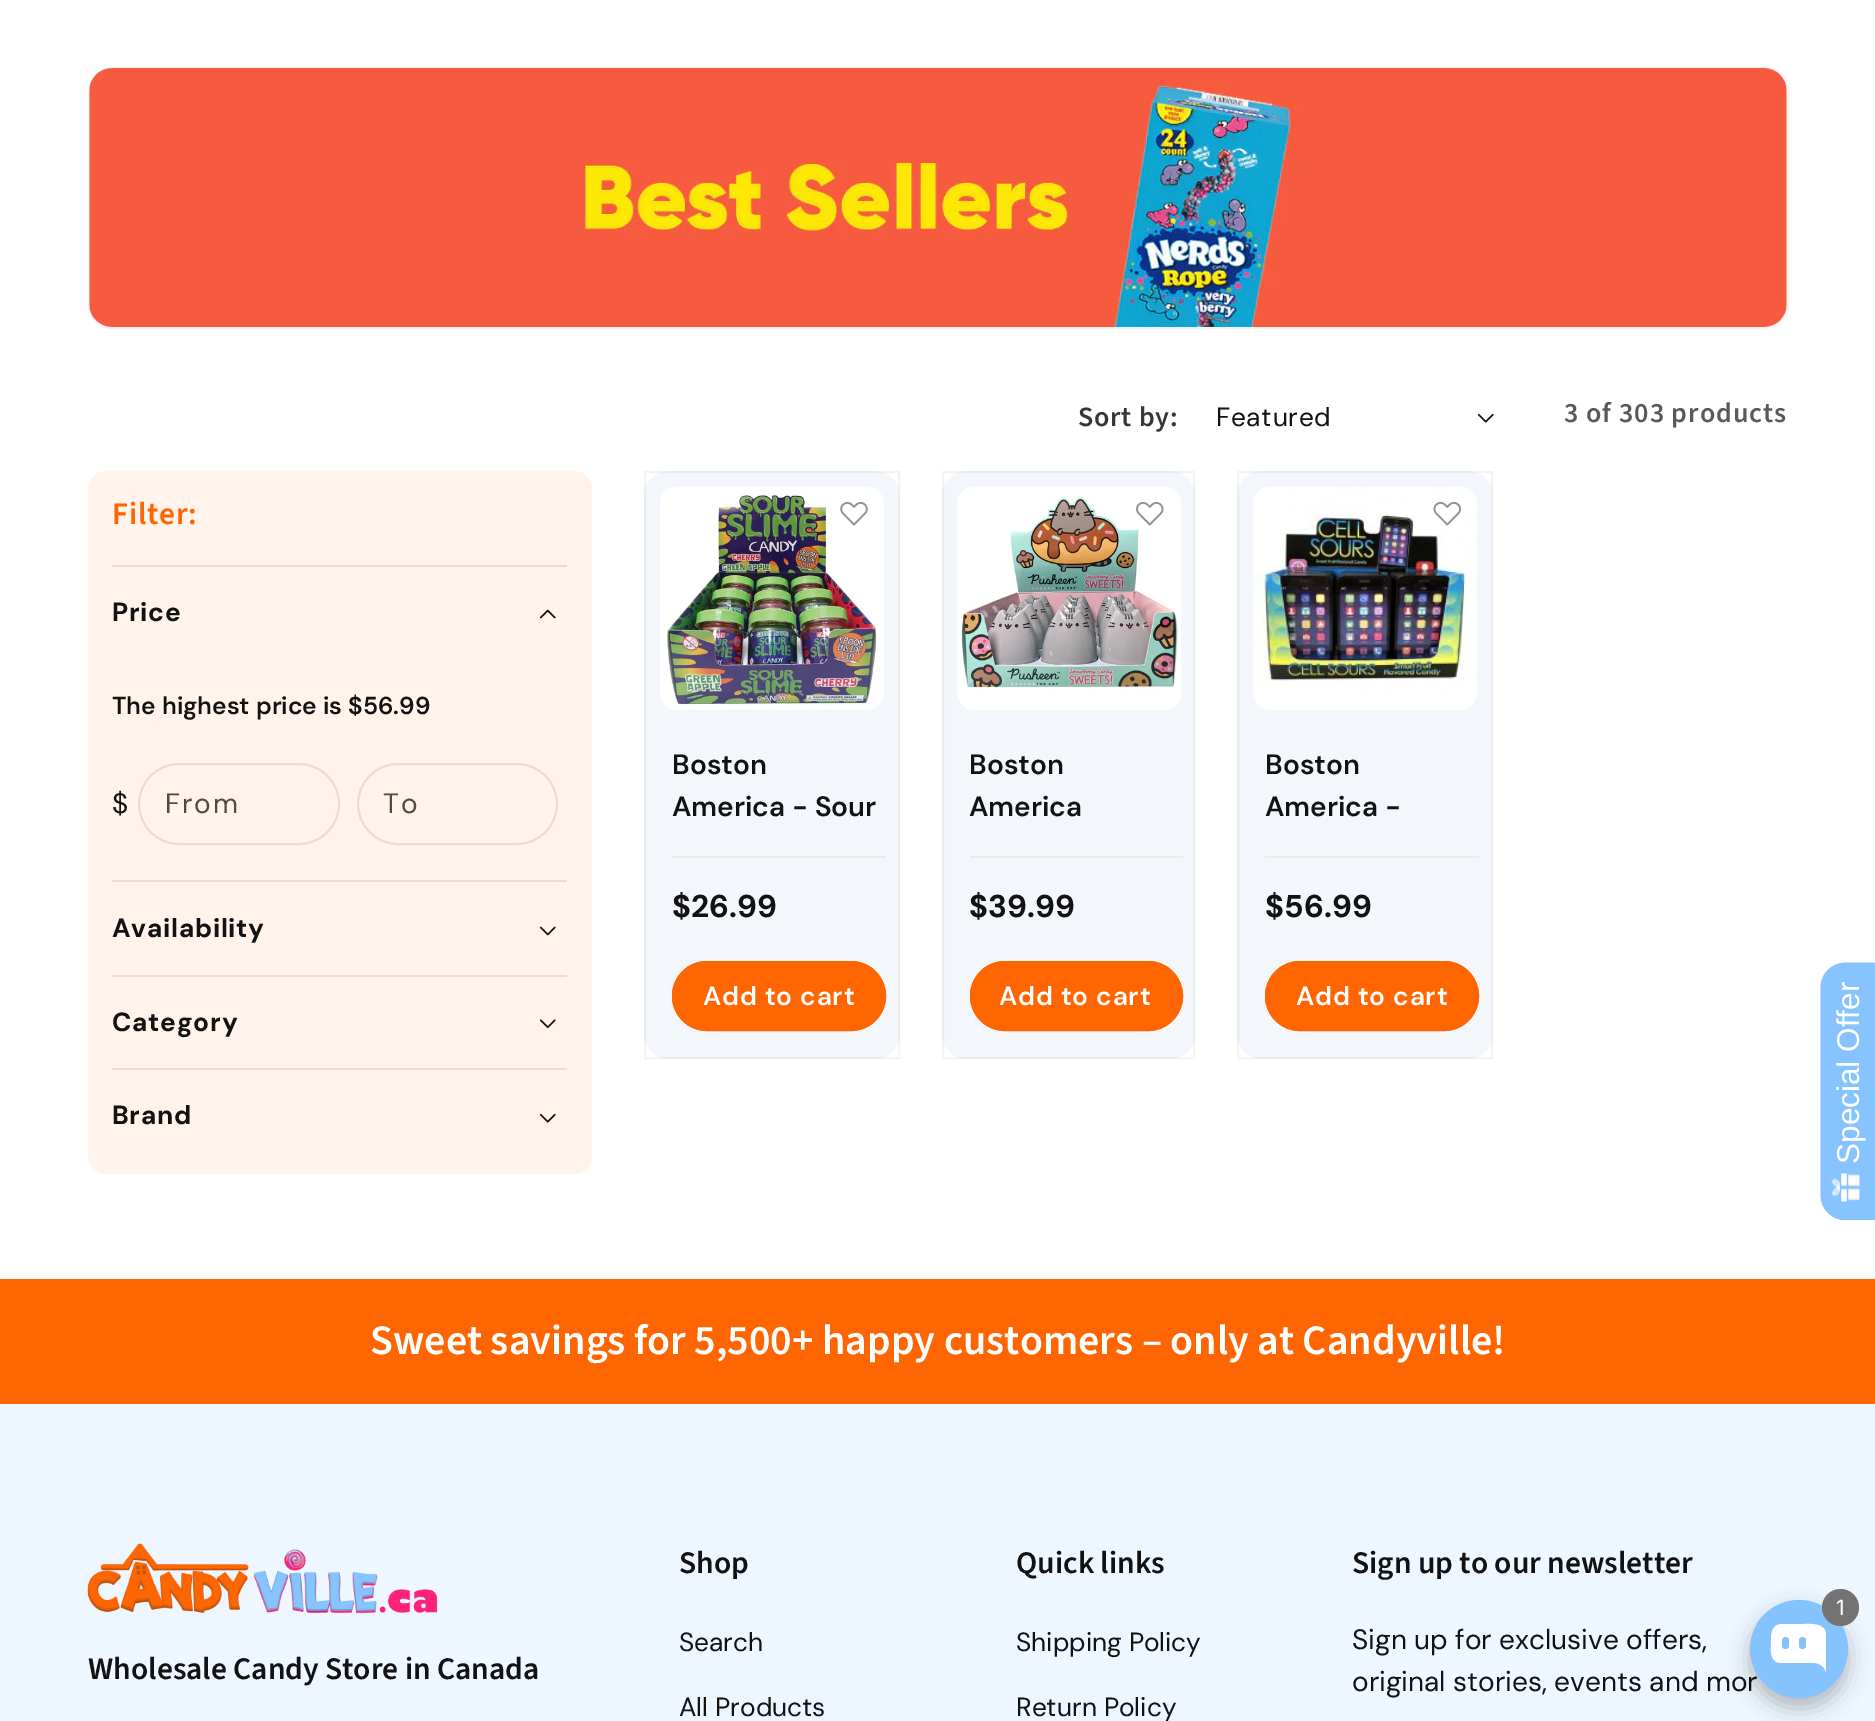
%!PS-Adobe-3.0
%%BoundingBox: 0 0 1875 1721
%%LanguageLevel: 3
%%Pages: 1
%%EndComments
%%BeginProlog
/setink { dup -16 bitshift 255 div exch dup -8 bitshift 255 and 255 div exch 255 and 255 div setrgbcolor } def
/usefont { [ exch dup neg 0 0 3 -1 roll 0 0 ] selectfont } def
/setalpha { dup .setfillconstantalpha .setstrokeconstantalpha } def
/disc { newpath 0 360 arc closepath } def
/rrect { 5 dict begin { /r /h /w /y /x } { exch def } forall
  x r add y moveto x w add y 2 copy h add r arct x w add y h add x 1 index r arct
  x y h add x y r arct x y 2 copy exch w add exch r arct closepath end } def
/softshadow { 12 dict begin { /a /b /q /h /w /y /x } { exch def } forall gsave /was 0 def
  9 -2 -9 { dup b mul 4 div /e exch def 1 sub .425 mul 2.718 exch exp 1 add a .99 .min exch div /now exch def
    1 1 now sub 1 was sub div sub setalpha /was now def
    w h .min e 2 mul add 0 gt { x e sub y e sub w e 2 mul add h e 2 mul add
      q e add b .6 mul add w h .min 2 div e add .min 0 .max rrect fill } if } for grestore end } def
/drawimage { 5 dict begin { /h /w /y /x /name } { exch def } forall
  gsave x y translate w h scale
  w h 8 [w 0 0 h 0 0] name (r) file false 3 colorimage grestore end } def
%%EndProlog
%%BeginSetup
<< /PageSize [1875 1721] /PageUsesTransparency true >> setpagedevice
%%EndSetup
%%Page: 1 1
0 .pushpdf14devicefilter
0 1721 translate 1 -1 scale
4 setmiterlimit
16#FFFFFF setink
0 0 1875 1721 rectfill
16#F3F3F3 setink
2 setlinewidth
89 68 1699 260 24 rrect stroke
(img1.raw) 89 68 1698 259 drawimage
/SourceSans3-SemiBold 28 usefont
16#363636 setink
1078 426 moveto 0.75 0 (Sort by:) ashow
/DMSans-Regular 26.25 usefont
16#121212 setink
1216 426 moveto 0.75 0 (Featured) ashow
(img2.raw) 1477 413 17 10 drawimage
/SourceSans3-SemiBold 28 usefont
16#595959 setink
1564 422 moveto 1 0 (3 of 303 products) ashow
16#FFF3EB setink
88 471 504 703 18 rrect fill
/SourceSans3-SemiBold 31.5 usefont
16#FF6501 setink
112 524 moveto 0.75 0 (Filter:) ashow
16#E7DDD5 setink
112 565 455 2 rectfill
/DMSans-Bold 26.25 usefont
16#121212 setink
112 621 moveto 0.75 0 (Price) ashow
(img3.raw) 539 609 17 10 drawimage
/DMSans-SemiBold 24.5 usefont
112 714 moveto (The highest price is $56.99) show
/DMSans-Regular 28 usefont
112 813 moveto ($) show
16#E7DDD5 setink
139 764 200 80 40 rrect stroke
16#4D4A48 setink
165 813 moveto 2 0 (From) ashow
16#E7DDD5 setink
358 764 199 80 40 rrect stroke
16#4D4A48 setink
383 813 moveto 2 0 (To) ashow
16#E7DDD5 setink
112 880 455 2 rectfill
/DMSans-Bold 26.25 usefont
16#121212 setink
112 937 moveto 0.75 0 (Availability) ashow
(img4.raw) 539 926 17 10 drawimage
16#E7DDD5 setink
112 975 455 2 rectfill
16#121212 setink
112 1031 moveto 0.75 0 (Category) ashow
(img5.raw) 539 1019 17 10 drawimage
16#E7DDD5 setink
112 1068 455 2 rectfill
16#121212 setink
112 1124 moveto 0.75 0 (Brand) ashow
(img6.raw) 539 1113 17 10 drawimage
16#F3F7FC setink
644 471 256 588 25 rrect fill
0.05 setalpha
16#121212 setink
645 472 254 586 rectstroke
1 setalpha
16#FFFFFF setink
660 487 224 222 18 rrect fill
(img7.raw) 660 486 223 224 drawimage
/DMSans-SemiBold 28 usefont
16#121212 setink
672 774 moveto (Boston) show
672 816 moveto (America - Sour) show
16#EBEBEB setink
672 856 214 2 rectfill
/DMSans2-Bold 31.5 usefont
16#121212 setink
672 917 moveto ($26.99) show
(img8.raw) 840 501 28 25 drawimage
16#FF6501 setink
672 961 214 70 35 rrect fill
673 962 212 68 34 rrect stroke
/DMSans-SemiBold 26.25 usefont
16#FFFFFF setink
703 1005 moveto 0.75 0 (Add to cart) ashow
16#F3F7FC setink
942 471 253 588 25 rrect fill
0.05 setalpha
16#121212 setink
943 472 251 586 rectstroke
1 setalpha
16#FFFFFF setink
957 487 223 222 18 rrect fill
(img9.raw) 958 486 223 224 drawimage
/DMSans-SemiBold 28 usefont
16#121212 setink
969 774 moveto (Boston) show
969 816 moveto (America) show
16#EBEBEB setink
970 856 213 2 rectfill
/DMSans2-Bold 31.5 usefont
16#121212 setink
969 917 moveto ($39.99) show
(img10.raw) 1136 501 28 25 drawimage
16#FF6501 setink
970 961 213 70 35 rrect fill
971 962 211 68 34 rrect stroke
/DMSans-SemiBold 26.25 usefont
16#FFFFFF setink
999 1005 moveto 0.75 0 (Add to cart) ashow
16#F3F7FC setink
1237 471 256 588 25 rrect fill
0.05 setalpha
16#121212 setink
1238 472 254 586 rectstroke
1 setalpha
(img11.raw) 1253 486 224 224 drawimage
/DMSans-SemiBold 28 usefont
1265 774 moveto (Boston) show
1265 816 moveto (America -) show
16#EBEBEB setink
1265 856 214 2 rectfill
/DMSans2-Bold 31.5 usefont
16#121212 setink
1265 917 moveto ($56.99) show
(img12.raw) 1433 501 28 25 drawimage
16#FF6501 setink
1265 961 214 70 35 rrect fill
1266 962 212 68 34 rrect stroke
/DMSans-SemiBold 26.25 usefont
16#FFFFFF setink
1296 1005 moveto 0.75 0 (Add to cart) ashow
16#87C3FF setink
1821 1195 moveto 1821 987 lineto 1821 974 1832 963 1845 963 curveto 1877 963 lineto 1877 1220 lineto 1845 1220 lineto 1832 1220 1821 1209 1821 1195 curveto closepath fill
1.8 setlinewidth
1821.5 1195.5 moveto 1821.5 987 lineto 1821.5 974 1832.5 963.5 1845.5 963.5 curveto 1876 963.5 lineto 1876 1219 lineto 1845.5 1219 lineto 1832.5 1219 1821.5 1208.5 1821.5 1195.5 curveto closepath stroke
/LiberationSans-Regular 31.5 usefont
16#FFFFFF setink
gsave 1859 1164 translate -90 rotate 0 0 moveto (Special Offer) show grestore
(img13.raw) 1831 1173 29 29 drawimage
16#FF6501 setink
0 1279 1875 125 rectfill
/SourceSans3-SemiBold 42 usefont
16#FFFFFF setink
370 1354 moveto (Sweet savings for 5,500+ happy customers – only at Candyville!) show
16#EEF6FF setink
0 1404 1875 317 rectfill
(img14.raw) 87 1543 351 71 drawimage
/SourceSans3-SemiBold 31.5 usefont
16#121212 setink
88 1679 moveto (Wholesale Candy Store in Canada) show
679 1573 moveto (Shop) show
/DMSans-Regular 26.25 usefont
679 1651 moveto (Search) show
679 1716 moveto (All Products) show
/SourceSans3-SemiBold 31.5 usefont
1016 1573 moveto (Quick links) show
/DMSans-Regular 26.25 usefont
1016 1651 moveto (Shipping Policy) show
1016 1716 moveto (Return Policy) show
/SourceSans3-SemiBold 31.5 usefont
1352 1573 moveto (Sign up to our newsletter) show
/DMSans-Regular 28 usefont
1352 1649 moveto (Sign up for exclusive offers,) show
1352 1691 moveto (original stories, events and mor) show
16#000000 setink
1750 1610 98 98 49 10.5 0.25 softshadow
16#84C3FE setink
1799 1649 49 disc fill
16#FFFFFF setink
1782 1624 moveto 1772 1624 1771 1633 1771 1641 curveto 1771 1649 1769 1661 1780 1663 curveto 1814 1663 lineto 1818 1663 1822 1665 1824 1668 curveto 1826 1672 lineto 1826 1633 lineto 1824 1623 1812 1624 1804 1624 curveto closepath eofill
16#84C3FE setink
1782 1637 7 12 3.5 rrect fill
1799 1637 7 12 3.5 rrect fill
16#737373 setink
1840.5 1607.5 18.5 disc fill
/Inter-Regular 21 usefont
16#FFFFFF setink
1836 1615 moveto (1) show
.poppdf14devicefilter showpage
%%EOF
